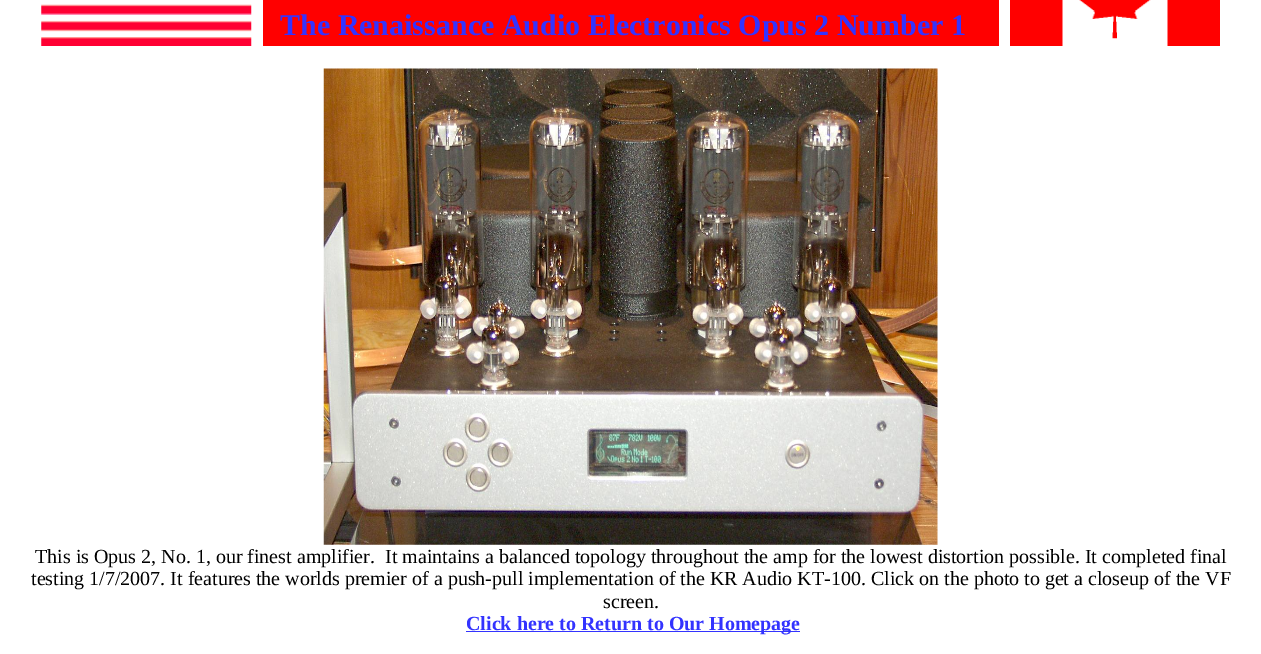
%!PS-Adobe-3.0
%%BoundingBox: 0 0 1261 654
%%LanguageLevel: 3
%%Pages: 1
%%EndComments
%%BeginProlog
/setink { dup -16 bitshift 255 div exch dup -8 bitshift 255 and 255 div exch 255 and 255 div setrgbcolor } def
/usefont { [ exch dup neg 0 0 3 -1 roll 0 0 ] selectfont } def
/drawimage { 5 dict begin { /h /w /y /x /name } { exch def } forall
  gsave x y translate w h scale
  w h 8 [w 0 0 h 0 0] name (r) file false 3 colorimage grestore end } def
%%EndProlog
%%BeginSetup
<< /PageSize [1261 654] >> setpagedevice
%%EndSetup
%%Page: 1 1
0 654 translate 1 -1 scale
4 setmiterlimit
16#FFFFFF setink
0 0 1261 654 rectfill
(img1.raw) 41 4 211 42 drawimage
16#FF0000 setink
263 0 736 46 rectfill
/LiberationSerif-Bold 30 usefont
16#3333FF setink
280 35 moveto (The Renaissance Audio Electronics Opus 2 Number 1) show
(img2.raw) 1010 0 210 46 drawimage
(img3.raw) 323 68 615 477 drawimage
/LiberationSerif-Regular 20 usefont
16#000000 setink
[
    [(This is Opus 2, No. 1, our finest amplifier.  It maintains a balanced topology throughout the amp for the lowest distortion possible. It completed final) 35 563]
    [(testing 1/7/2007. It features the worlds premier of a push-pull implementation of the KR Audio KT-100. Click on the photo to get a closeup of the VF) 31 585]
    [(screen.) 603 608]
] { aload pop moveto show } forall
16#3333FF setink
466 631 334 1 rectfill
/LiberationSerif-Bold 20 usefont
466 630 moveto (Click here to Return to Our Homepage) show
showpage
%%EOF
